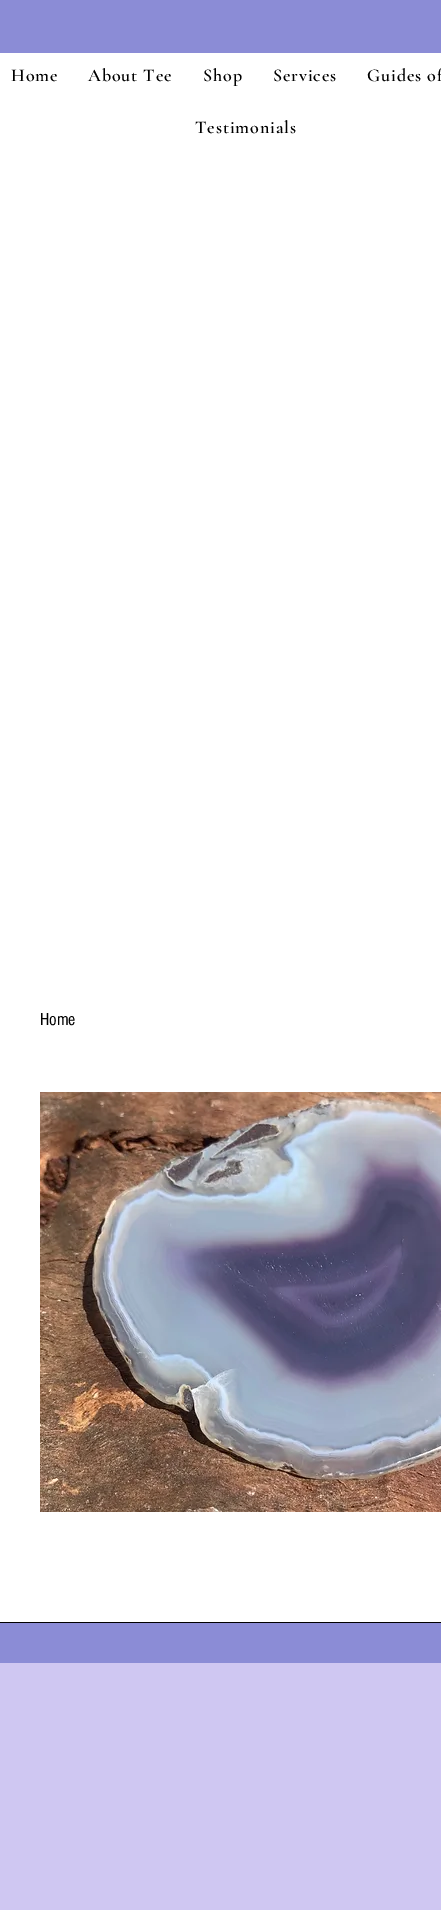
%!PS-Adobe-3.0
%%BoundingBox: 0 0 441 1910
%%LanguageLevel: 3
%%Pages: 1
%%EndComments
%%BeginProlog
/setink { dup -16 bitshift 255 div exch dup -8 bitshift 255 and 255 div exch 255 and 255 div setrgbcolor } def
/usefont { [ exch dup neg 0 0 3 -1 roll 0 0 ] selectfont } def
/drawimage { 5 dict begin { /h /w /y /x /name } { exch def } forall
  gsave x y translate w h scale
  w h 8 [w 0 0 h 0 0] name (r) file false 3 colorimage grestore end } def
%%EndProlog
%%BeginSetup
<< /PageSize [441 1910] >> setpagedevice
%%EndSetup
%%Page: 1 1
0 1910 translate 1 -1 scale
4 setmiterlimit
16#CFC7F2 setink
0 0 441 1910 rectfill
16#8B8CD6 setink
0 0 441 53 rectfill
16#FFFFFF setink
0 53 441 1569 rectfill
/CormorantGaramond-SemiBold 18 usefont
16#000000 setink
11 81 moveto 0.9 0 (Home) ashow
88 81 moveto 0.9 0 (About Tee) ashow
203 81 moveto 0.9 0 (Shop) ashow
273 81 moveto 0.9 0 (Services) ashow
367 81 moveto 0.9 0 (Guides of) ashow
195 133 moveto 0.9 0 (Testimonials) ashow
/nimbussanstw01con-Regular 18 usefont
40 1025 moveto (Home) show
(img1.raw) 40 1092 401 420 drawimage
0 1622 441 1 rectfill
16#8B8CD6 setink
0 1623 441 40 rectfill
showpage
%%EOF
